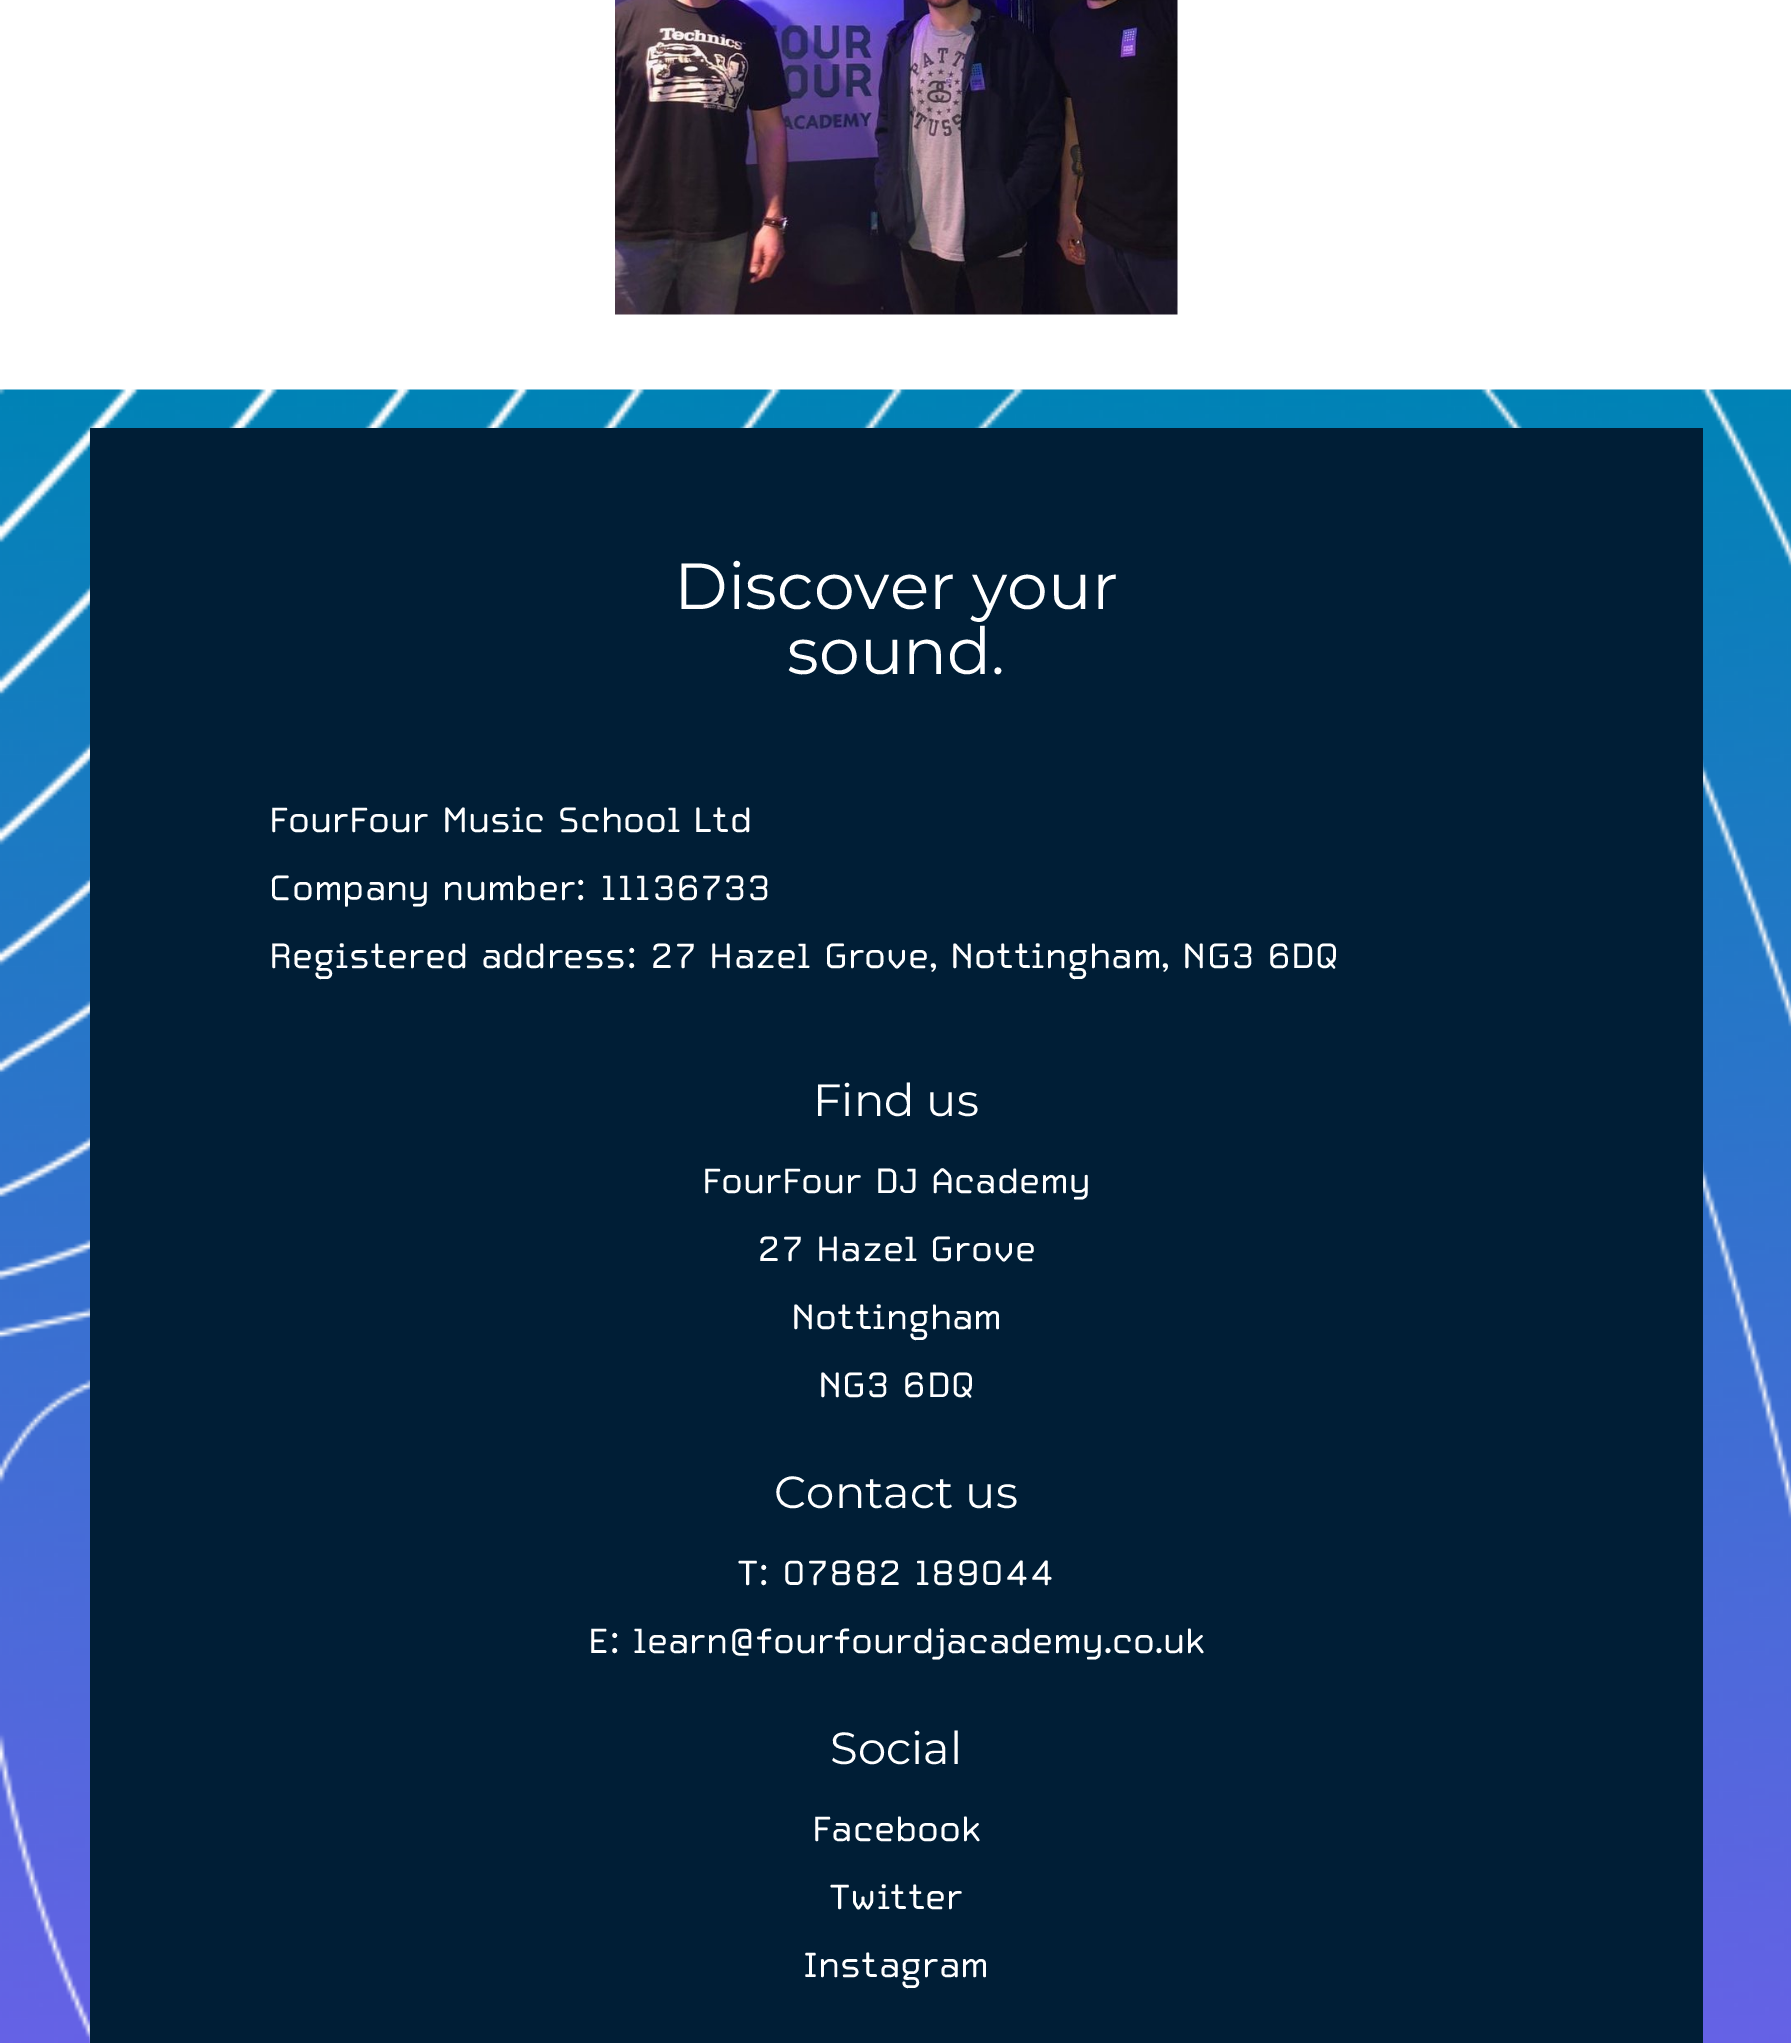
%!PS-Adobe-3.0
%%BoundingBox: 0 0 1791 2043
%%LanguageLevel: 3
%%Pages: 1
%%EndComments
%%BeginProlog
/setink { dup -16 bitshift 255 div exch dup -8 bitshift 255 and 255 div exch 255 and 255 div setrgbcolor } def
/usefont { [ exch dup neg 0 0 3 -1 roll 0 0 ] selectfont } def
/drawimage { 5 dict begin { /h /w /y /x /name } { exch def } forall
  gsave x y translate w h scale
  w h 8 [w 0 0 h 0 0] name (r) file false 3 colorimage grestore end } def
%%EndProlog
%%BeginSetup
<< /PageSize [1791 2043] >> setpagedevice
%%EndSetup
%%Page: 1 1
0 2043 translate 1 -1 scale
4 setmiterlimit
16#FFFFFF setink
0 0 1791 2043 rectfill
(img1.raw) 615 0 563 315 drawimage
(img2.raw) 0 389 1791 1654 drawimage
16#001E36 setink
90 428 1613 1615 rectfill
/Montserrat-Regular 65 usefont
16#FFFFFF setink
674 609 moveto (Discover your) show
787 674 moveto (sound.) show
/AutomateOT-Regular 35 usefont
[
    [(FourFour Music School Ltd) 269 832]
    [(Company number: 11136733) 269 900]
    [(Registered address: 27 Hazel Grove, Nottingham, NG3 6DQ) 269 968]
] { aload pop moveto show } forall
/Montserrat-Regular 45 usefont
813 1116 moveto (Find us) show
/AutomateOT-Regular 35 usefont
[
    [(FourFour DJ Academy) 702 1193]
    [(27 Hazel Grove) 757 1261]
    [(Nottingham) 791 1329]
    [(NG3 6DQ) 818 1397]
] { aload pop moveto show } forall
/Montserrat-Regular 45 usefont
774 1508 moveto (Contact us) show
/AutomateOT-Regular 35 usefont
737 1585 moveto (T: 07882 189044) show
588 1653 moveto (E: learn@fourfourdjacademy.co.uk) show
/Montserrat-Regular 45 usefont
830 1764 moveto (Social) show
/AutomateOT-Regular 35 usefont
[
    [(Facebook) 812 1841]
    [(Twitter) 829 1909]
    [(Instagram) 803 1977]
] { aload pop moveto show } forall
showpage
%%EOF
